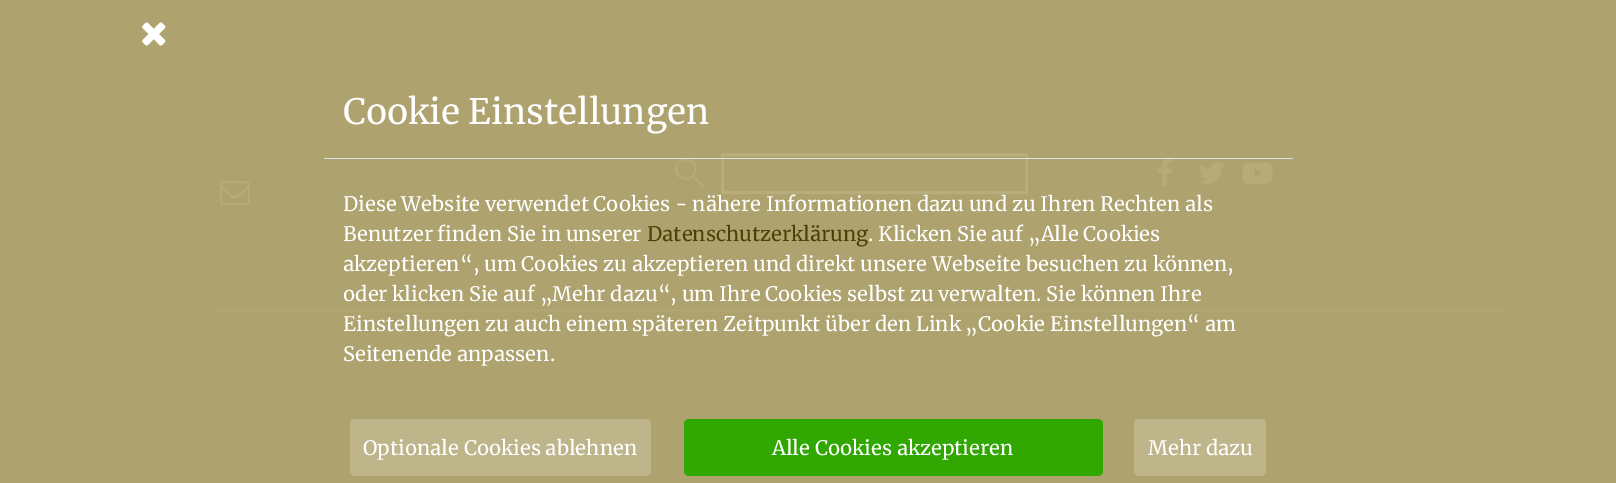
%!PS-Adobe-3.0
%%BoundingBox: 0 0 1616 483
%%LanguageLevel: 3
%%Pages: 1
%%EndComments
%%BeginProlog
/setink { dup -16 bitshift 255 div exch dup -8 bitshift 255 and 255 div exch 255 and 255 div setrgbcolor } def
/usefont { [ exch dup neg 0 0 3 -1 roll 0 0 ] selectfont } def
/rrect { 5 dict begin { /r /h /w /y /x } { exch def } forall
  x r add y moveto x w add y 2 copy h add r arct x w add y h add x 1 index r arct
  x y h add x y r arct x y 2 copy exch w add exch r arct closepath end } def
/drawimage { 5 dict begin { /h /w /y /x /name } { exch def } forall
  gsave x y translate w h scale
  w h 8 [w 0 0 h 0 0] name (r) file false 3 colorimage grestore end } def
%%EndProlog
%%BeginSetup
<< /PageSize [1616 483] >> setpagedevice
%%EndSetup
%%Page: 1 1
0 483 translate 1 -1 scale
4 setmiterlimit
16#AEA26E setink
0 0 1616 483 rectfill
(img1.raw) 142 22 24 24 drawimage
16#B9AD7D setink
3 setlinewidth
722.5 154.5 304 38 1 rrect stroke
16#DEE2E6 setink
324 158 969 1 rectfill
/Merriweather-Regular 35 usefont
16#FFFFFF setink
343 124 moveto (Cookie Einstellungen) show
/Merriweather-Regular 20 usefont
343 211 moveto (Diese Website verwendet Cookies - nähere Informationen dazu und zu Ihren Rechten als) show
343 241 moveto (Benutzer finden Sie in unserer) show
16#4E4006 setink
647 241 moveto (Datenschutzerklärung) show
16#FFFFFF setink
[
    [(. Klicken Sie auf „Alle Cookies) 868 241]
    [(akzeptieren“, um Cookies zu akzeptieren und direkt unsere Webseite besuchen zu können,) 343 271]
    [(oder klicken Sie auf „Mehr dazu“, um Ihre Cookies selbst zu verwalten. Sie können Ihre) 343 301]
    [(Einstellungen zu auch einem späteren Zeitpunkt über den Link „Cookie Einstellungen“ am) 343 331]
    [(Seitenende anpassen.) 343 361]
] { aload pop moveto show } forall
16#BFB58B setink
350 419 301 57 5 rrect fill
16#FFFFFF setink
363 455 moveto (Optionale Cookies ablehnen) show
16#31A702 setink
684 419 419 57 5 rrect fill
16#FFFFFF setink
772 455 moveto (Alle Cookies akzeptieren) show
16#BFB58B setink
1134 419 132 57 5 rrect fill
16#FFFFFF setink
1148 455 moveto (Mehr dazu) show
(img2.raw) 675 159 30 30 drawimage
(img3.raw) 1157 159 16 28 drawimage
(img4.raw) 1198 162 27 22 drawimage
(img5.raw) 1242 162 31 22 drawimage
(img6.raw) 220 181 30 24 drawimage
16#B6AA78 setink
215 310 1288 1 rectfill
showpage
%%EOF
